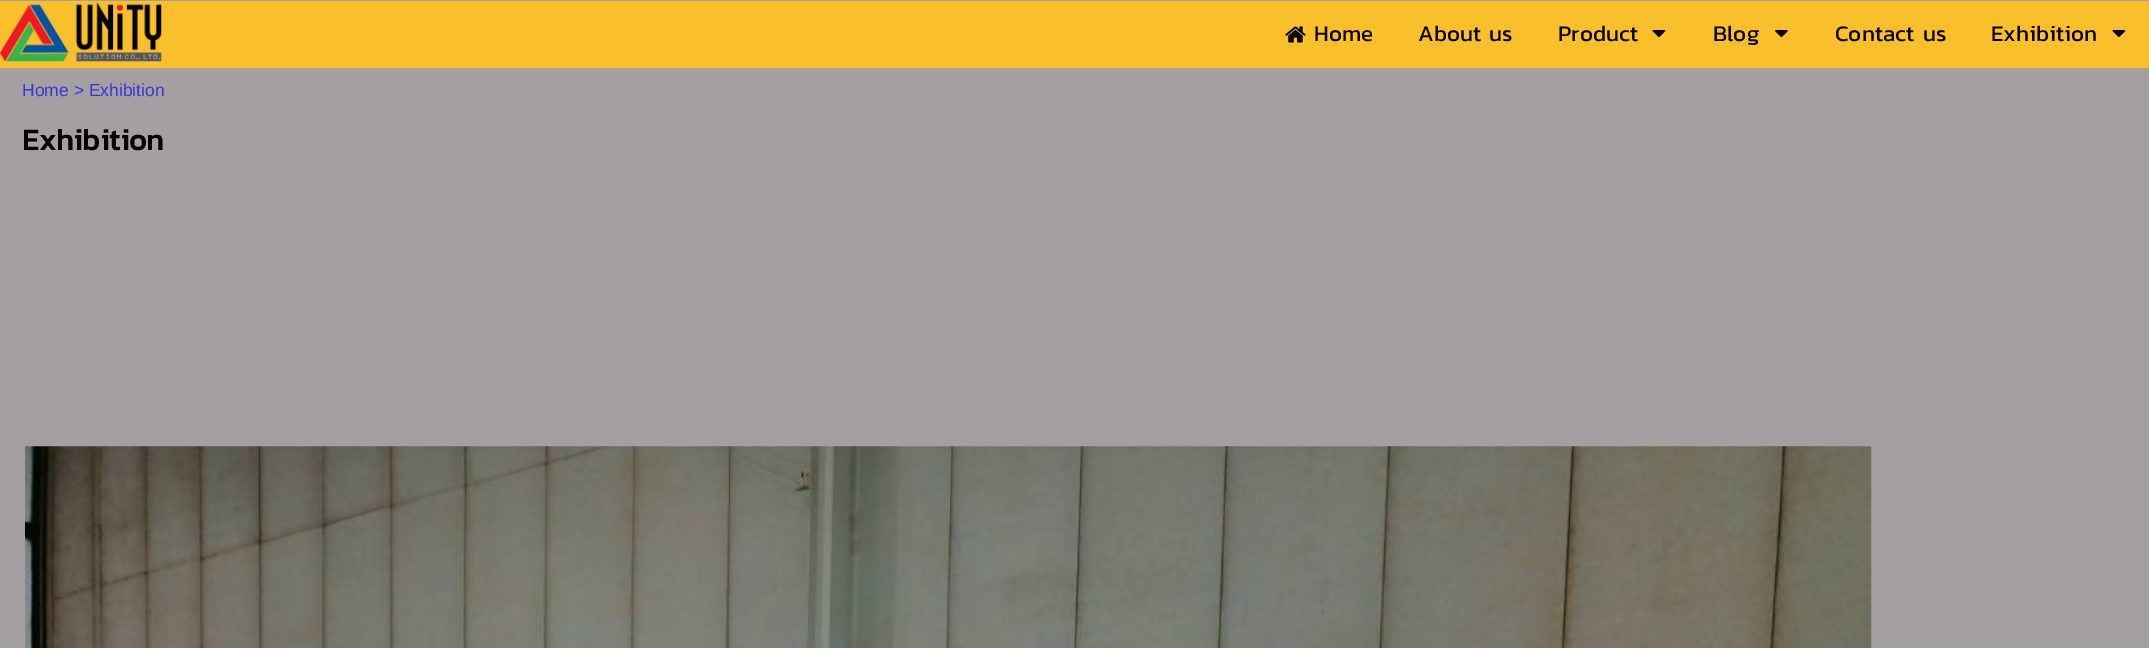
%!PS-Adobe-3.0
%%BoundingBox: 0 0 2149 648
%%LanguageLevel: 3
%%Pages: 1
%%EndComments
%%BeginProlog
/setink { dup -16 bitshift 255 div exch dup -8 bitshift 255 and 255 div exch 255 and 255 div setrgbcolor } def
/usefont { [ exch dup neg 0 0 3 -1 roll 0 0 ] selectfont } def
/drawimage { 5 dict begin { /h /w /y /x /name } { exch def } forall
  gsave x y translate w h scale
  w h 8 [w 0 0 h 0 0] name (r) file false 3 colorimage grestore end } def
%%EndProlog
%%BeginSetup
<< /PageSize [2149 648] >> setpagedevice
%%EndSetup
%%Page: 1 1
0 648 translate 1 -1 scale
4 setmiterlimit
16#A4A0A1 setink
0 0 2149 648 rectfill
16#FAC02C setink
0 1 2149 67 rectfill
(img1.raw) 0 2 162 60 drawimage
(img2.raw) 1285 26 21 17 drawimage
/Kanit-Regular 22.5 usefont
16#080108 setink
[
    [(Home) 1314 41]
    [(About us) 1418 41]
    [(Product) 1558 41]
] { aload pop moveto show } forall
(img3.raw) 1652 30 14 8 drawimage
1713 41 moveto (Blog) show
(img4.raw) 1775 30 13 8 drawimage
1835 41 moveto (Contact us) show
1991 41 moveto (Exhibition) show
(img3.raw) 2112 30 14 8 drawimage
/LiberationSans-Regular 17.5 usefont
16#3734E0 setink
22 96 moveto (Home > Exhibition) show
/Kanit-Bold 30 usefont
16#050400 setink
22 150 moveto (Exhibition) show
(img5.raw) 25 446 1847 202 drawimage
showpage
%%EOF
